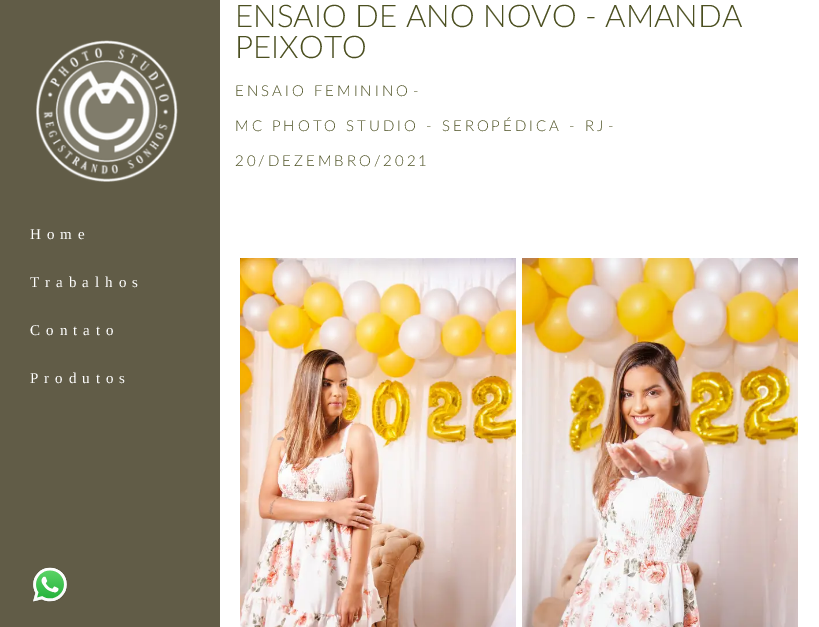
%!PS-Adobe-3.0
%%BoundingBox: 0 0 819 627
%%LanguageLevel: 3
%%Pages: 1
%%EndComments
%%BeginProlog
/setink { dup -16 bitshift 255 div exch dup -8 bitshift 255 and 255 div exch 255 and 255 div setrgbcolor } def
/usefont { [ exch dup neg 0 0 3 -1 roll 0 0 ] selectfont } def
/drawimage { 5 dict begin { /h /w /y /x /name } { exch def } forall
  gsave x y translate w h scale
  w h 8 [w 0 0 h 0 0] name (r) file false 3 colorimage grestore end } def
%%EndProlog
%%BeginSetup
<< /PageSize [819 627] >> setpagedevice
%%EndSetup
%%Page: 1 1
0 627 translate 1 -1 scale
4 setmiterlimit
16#FFFFFF setink
0 0 819 627 rectfill
/Lato-Light 31.25 usefont
16#4B4F20 setink
235 27 moveto (ENSAIO DE ANO NOVO - AMANDA) show
235 58 moveto (PEIXOTO) show
/Lato-Light 15 usefont
235 96 moveto 3 0 (ENSAIO FEMININO) ashow
413 96 moveto 3 0 (-) ashow
235 131 moveto 3 0 (MC PHOTO STUDIO - SEROPÉDICA - RJ) ashow
608 131 moveto 3 0 (-) ashow
235 166 moveto 3 0 (20/DEZEMBRO/2021) ashow
(img1.raw) 240 258 276 369 drawimage
(img2.raw) 522 258 276 369 drawimage
16#615C47 setink
0 0 220 627 rectfill
(img3.raw) 36 40 142 142 drawimage
/LiberationSerif-Regular 15 usefont
16#FFFFFF setink
30 239 moveto 6 0 (Home) ashow
30 287 moveto 6 0 (Trabalhos) ashow
30 335 moveto 6 0 (Contato) ashow
30 383 moveto 6 0 (Produtos) ashow
(img4.raw) 33 567 34 35 drawimage
showpage
%%EOF
